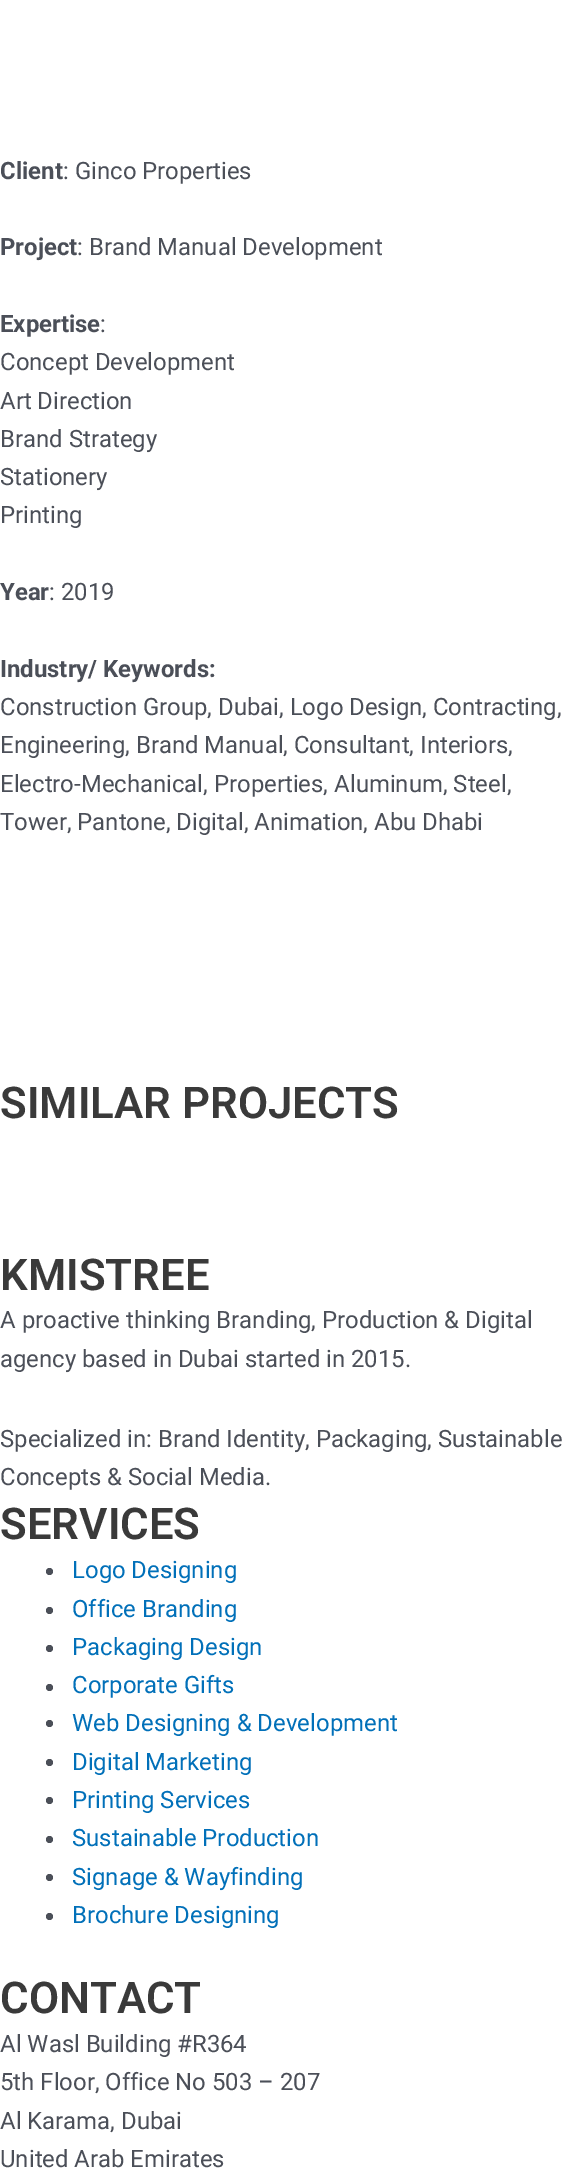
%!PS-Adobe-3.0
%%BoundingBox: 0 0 570 2171
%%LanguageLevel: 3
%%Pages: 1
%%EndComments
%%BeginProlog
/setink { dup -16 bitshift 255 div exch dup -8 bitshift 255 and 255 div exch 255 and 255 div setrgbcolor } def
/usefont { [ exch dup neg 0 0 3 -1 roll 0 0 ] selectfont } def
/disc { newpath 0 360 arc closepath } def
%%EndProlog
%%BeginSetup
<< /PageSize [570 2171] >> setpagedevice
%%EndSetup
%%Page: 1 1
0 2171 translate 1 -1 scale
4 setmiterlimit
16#FFFFFF setink
0 0 570 2171 rectfill
/Roboto-Bold 23.9 usefont
16#4B4F58 setink
0 179 moveto (Client) show
/Roboto-Regular 23.9 usefont
63 179 moveto (: Ginco Properties) show
/Roboto-Bold 23.9 usefont
0 255 moveto (Project) show
/Roboto-Regular 23.9 usefont
77 255 moveto (: Brand Manual Development) show
/Roboto-Bold 23.9 usefont
0 332 moveto (Expertise) show
/Roboto-Regular 23.9 usefont
[
    [(:) 100 332]
    [(Concept Development) 0 370]
    [(Art Direction) 0 409]
    [(Brand Strategy) 0 447]
    [(Stationery) 0 485]
    [(Printing) 0 523]
] { aload pop moveto show } forall
/Roboto-Bold 23.9 usefont
0 600 moveto (Year) show
/Roboto-Regular 23.9 usefont
49 600 moveto (: 2019) show
/Roboto-Bold 23.9 usefont
0 677 moveto (Industry/ Keywords:) show
/Roboto-Regular 23.9 usefont
[
    [(Construction Group, Dubai, Logo Design, Contracting,) 0 715]
    [(Engineering, Brand Manual, Consultant, Interiors,) 0 753]
    [(Electro-Mechanical, Properties, Aluminum, Steel,) 0 792]
    [(Tower, Pantone, Digital, Animation, Abu Dhabi) 0 830]
] { aload pop moveto show } forall
/Roboto-SemiBold 43.75 usefont
16#3A3A3A setink
0 1118 moveto (SIMILAR PROJECTS) show
0 1290 moveto (KMISTREE) show
/Roboto-Regular 23.9 usefont
16#4B4F58 setink
[
    [(A proactive thinking Branding, Production & Digital) 0 1328]
    [(agency based in Dubai started in 2015.) 0 1367]
    [(Specialized in: Brand Identity, Packaging, Sustainable) 0 1447]
    [(Concepts & Social Media.) 0 1485]
] { aload pop moveto show } forall
/Roboto-SemiBold 43.75 usefont
16#3A3A3A setink
0 1539 moveto (SERVICES) show
16#4B4F58 setink
49.5 1571.5 3.5 disc fill
/Roboto-Regular 23.9 usefont
16#0170B9 setink
72 1578 moveto (Logo Designing) show
16#4B4F58 setink
49.5 1610.5 3.5 disc fill
16#0170B9 setink
72 1617 moveto (Office Branding) show
16#4B4F58 setink
49.5 1648.5 3.5 disc fill
16#0170B9 setink
72 1655 moveto (Packaging Design) show
16#4B4F58 setink
49.5 1687.5 3.5 disc fill
16#0170B9 setink
72 1693 moveto (Corporate Gifts) show
16#4B4F58 setink
49.5 1723.5 3.5 disc fill
16#0170B9 setink
72 1731 moveto (Web Designing & Development) show
16#4B4F58 setink
49.5 1762.5 3.5 disc fill
16#0170B9 setink
72 1770 moveto (Digital Marketing) show
16#4B4F58 setink
49.5 1800.5 3.5 disc fill
16#0170B9 setink
72 1808 moveto (Printing Services) show
16#4B4F58 setink
49.5 1839.5 3.5 disc fill
16#0170B9 setink
72 1846 moveto (Sustainable Production) show
16#4B4F58 setink
49.5 1877.5 3.5 disc fill
16#0170B9 setink
72 1885 moveto (Signage & Wayfinding) show
16#4B4F58 setink
49.5 1916.5 3.5 disc fill
16#0170B9 setink
72 1923 moveto (Brochure Designing) show
/Roboto-SemiBold 43.75 usefont
16#3A3A3A setink
0 2013 moveto (CONTACT) show
/Roboto-Regular 23.9 usefont
16#4B4F58 setink
[
    [(Al Wasl Building #R364) 0 2052]
    [(5th Floor, Office No 503 – 207) 0 2090]
    [(Al Karama, Dubai) 0 2129]
    [(United Arab Emirates) 0 2167]
] { aload pop moveto show } forall
showpage
%%EOF
